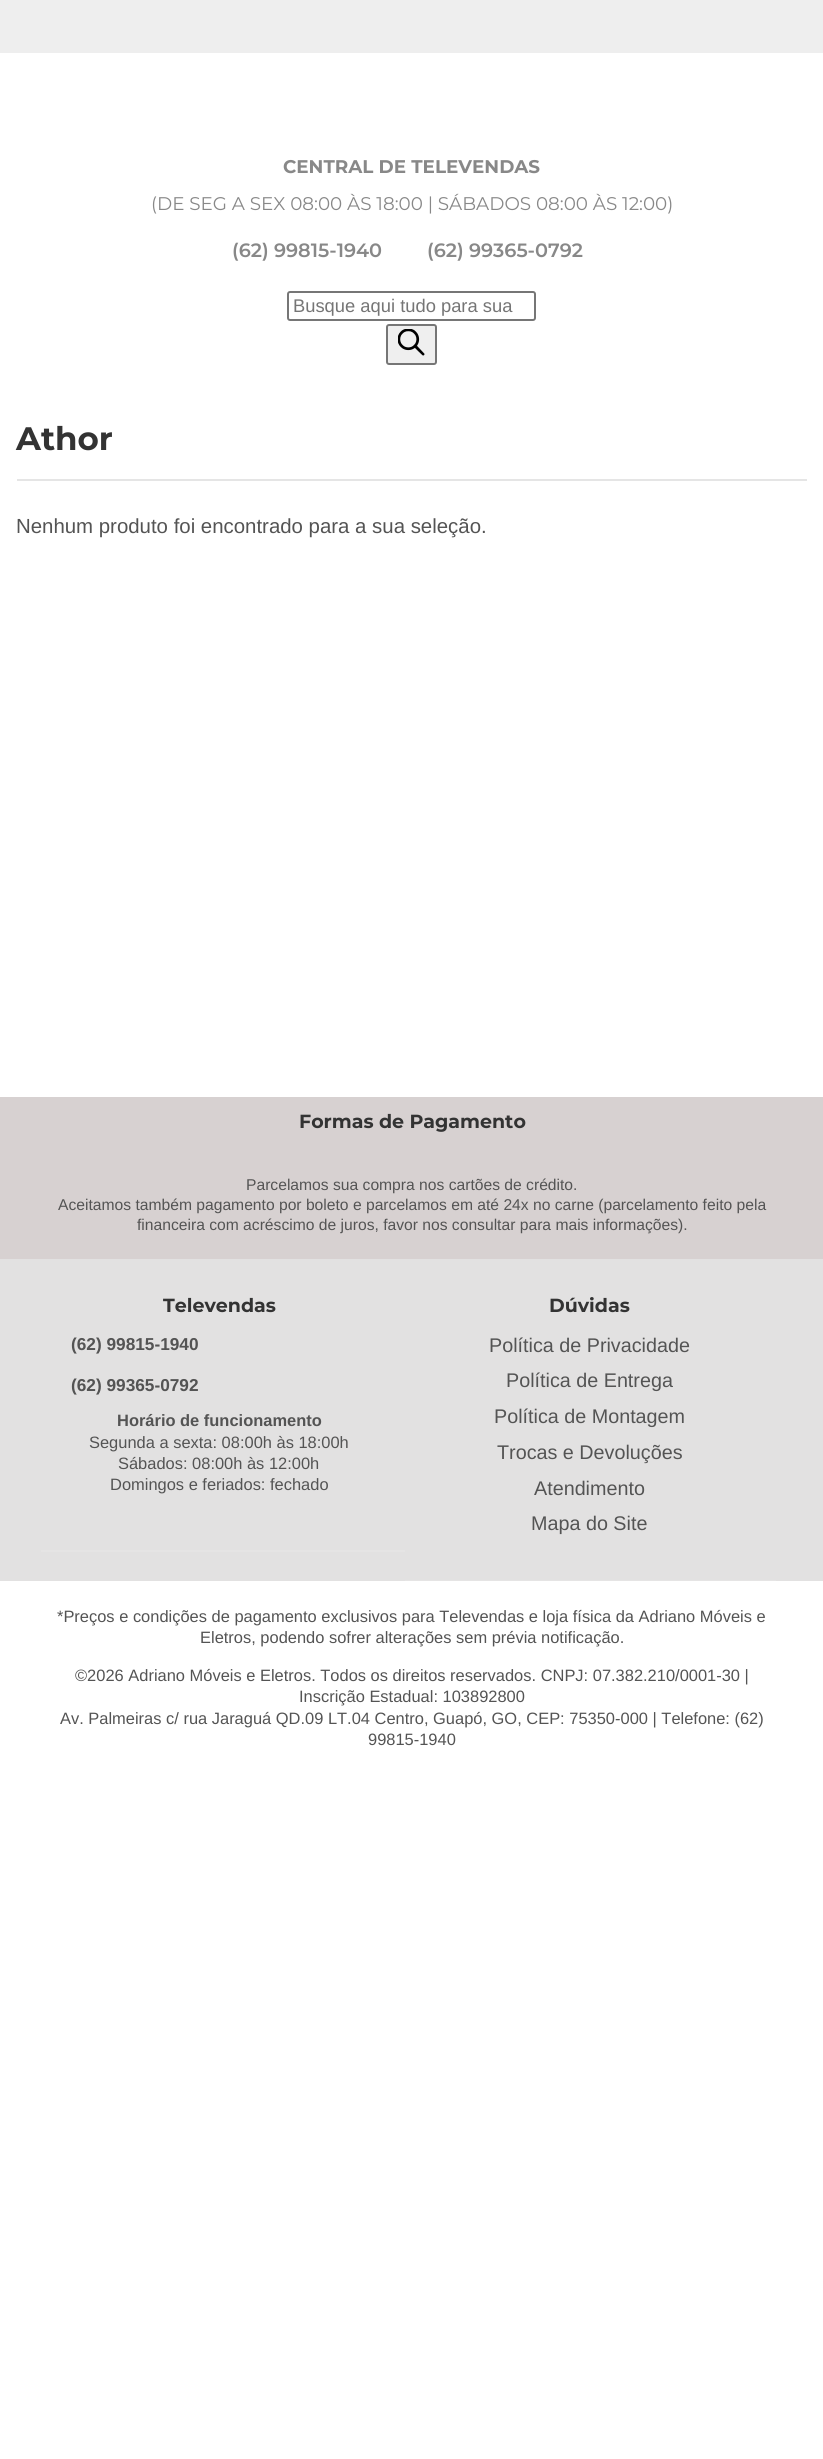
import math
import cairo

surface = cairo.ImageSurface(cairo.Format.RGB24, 823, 2459)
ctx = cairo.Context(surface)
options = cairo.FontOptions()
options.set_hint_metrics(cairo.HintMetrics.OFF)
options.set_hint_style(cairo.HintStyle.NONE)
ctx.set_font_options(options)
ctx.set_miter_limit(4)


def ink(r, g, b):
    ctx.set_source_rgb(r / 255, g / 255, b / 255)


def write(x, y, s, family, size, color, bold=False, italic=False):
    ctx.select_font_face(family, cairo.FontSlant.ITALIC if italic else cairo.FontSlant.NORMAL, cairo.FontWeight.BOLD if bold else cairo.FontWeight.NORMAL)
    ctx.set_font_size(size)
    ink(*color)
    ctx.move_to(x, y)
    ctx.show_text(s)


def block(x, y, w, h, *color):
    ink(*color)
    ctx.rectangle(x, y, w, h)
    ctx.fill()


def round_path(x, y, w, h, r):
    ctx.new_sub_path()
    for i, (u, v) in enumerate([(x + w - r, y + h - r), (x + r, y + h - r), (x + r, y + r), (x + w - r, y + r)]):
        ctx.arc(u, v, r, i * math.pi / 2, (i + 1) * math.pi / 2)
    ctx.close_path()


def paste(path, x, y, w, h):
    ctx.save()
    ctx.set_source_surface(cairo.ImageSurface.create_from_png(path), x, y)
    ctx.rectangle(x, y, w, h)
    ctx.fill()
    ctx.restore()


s1 = dict(family="Montserrat", size=18.35, color=(136, 136, 136), bold=True)
s2 = dict(family="Montserrat", size=18.35, color=(136, 136, 136))
s3 = dict(family="Montserrat SemiBold", size=19.25, color=(136, 136, 136))
s4 = dict(family="Liberation Sans", size=18.35, color=(117, 117, 117))
s5 = dict(family="Montserrat", size=32.5, color=(51, 51, 51), bold=True)
s6 = dict(family="Liberation Sans", size=20.4, color=(84, 84, 84))
s7 = dict(family="Montserrat", size=19, color=(51, 51, 51), bold=True)
s8 = dict(family="Liberation Sans", size=15.65, color=(84, 84, 84))
s9 = dict(family="Liberation Sans", size=17.25, color=(84, 84, 84), bold=True)
s10 = dict(family="Liberation Sans", size=16.45, color=(84, 84, 84), bold=True)
s11 = dict(family="Liberation Sans", size=16.45, color=(84, 84, 84))
s12 = dict(family="Liberation Sans", size=19.75, color=(84, 84, 84))

ink(255, 255, 255)
ctx.paint()
block(0, 0, 823, 53, 238, 238, 238)
write(283, 173, "CENTRAL DE TELEVENDAS", **s1)
write(151, 210, "(DE SEG A SEX 08:00 ÀS 18:00 | SÁBADOS 08:00 ÀS 12:00)", **s2)
write(232, 257, "(62) 99815-1940", **s3)
write(427, 257, "(62) 99365-0792", **s3)
round_path(288, 292, 247, 28, 2)
ink(118, 118, 118)
ctx.stroke()
write(293, 312, "Busque aqui tudo para sua", **s4)
ink(239, 239, 239)
round_path(387, 325, 49, 39, 2)
ctx.fill_preserve()
ink(118, 118, 118)
ctx.stroke()
paste("pic1.png", 398, 329, 27, 27)
block(17, 479, 790, 2, 229, 229, 229)
write(16, 450, "Athor", **s5)
write(16, 533, "Nenhum produto foi encontrado para a sua seleção.", **s6)
block(0, 1259, 823, 322, 226, 225, 225)
block(405, 1580, 371, 1, 229, 228, 228)
block(0, 1097, 823, 162, 215, 209, 209)
write(299, 1128, "Formas de Pagamento", **s7)
write(246, 1190, "Parcelamos sua compra nos cartões de crédito.", **s8)
write(58, 1210, "Aceitamos também pagamento por boleto e parcelamos em até 24x no carne (parcelamento feito pela", **s8)
write(137, 1230, "financeira com acréscimo de juros, favor nos consultar para mais informações).", **s8)
block(41, 1550, 364, 2, 229, 228, 228)
write(163, 1312, "Televendas", **s7)
write(71, 1350, "(62) 99815-1940", **s9)
write(71, 1391, "(62) 99365-0792", **s9)
write(117, 1426, "Horário de funcionamento", **s10)
write(89, 1448, "Segunda a sexta: 08:00h às 18:00h", **s11)
write(118, 1469, "Sábados: 08:00h às 12:00h", **s11)
write(110, 1490, "Domingos e feriados: fechado", **s11)
write(549, 1312, "Dúvidas", **s7)
write(489, 1352, "Política de Privacidade", **s12)
write(506, 1387, "Política de Entrega", **s12)
write(494, 1423, "Política de Montagem", **s12)
write(497, 1459, "Trocas e Devoluções", **s12)
write(534, 1495, "Atendimento", **s12)
write(531, 1530, "Mapa do Site", **s12)
write(57, 1622, "*Preços e condições de pagamento exclusivos para Televendas e loja física da Adriano Móveis e", **s11)
write(200, 1643, "Eletros, podendo sofrer alterações sem prévia notificação.", **s11)
write(75, 1681, "©2026 Adriano Móveis e Eletros. Todos os direitos reservados. CNPJ: 07.382.210/0001-30 |", **s11)
write(299, 1702, "Inscrição Estadual: 103892800", **s11)
write(60, 1724, "Av. Palmeiras c/ rua Jaraguá QD.09 LT.04 Centro, Guapó, GO, CEP: 75350-000 | Telefone: (62)", **s11)
write(368, 1745, "99815-1940", **s11)
surface.write_to_png("screenshot.png")
